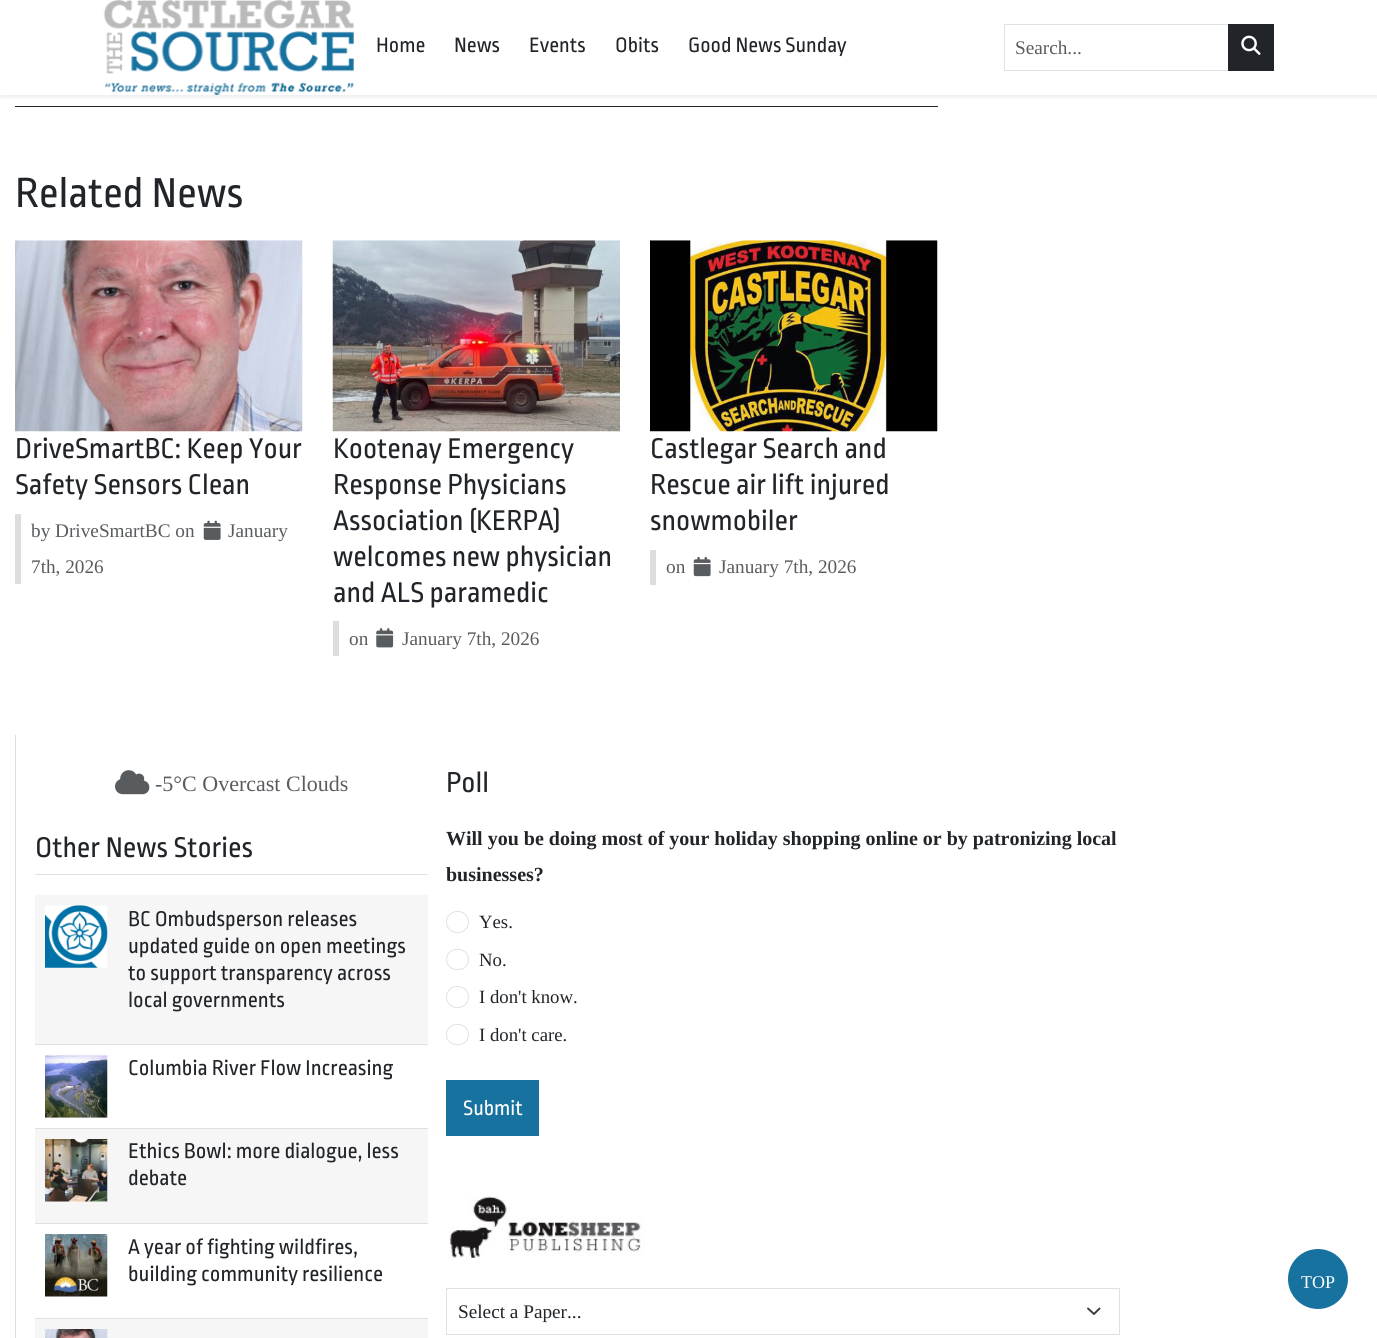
import math
import cairo

surface = cairo.ImageSurface(cairo.Format.RGB24, 1377, 1338)
ctx = cairo.Context(surface)
options = cairo.FontOptions()
options.set_hint_metrics(cairo.HintMetrics.OFF)
options.set_hint_style(cairo.HintStyle.NONE)
ctx.set_font_options(options)
ctx.set_miter_limit(4)


def ink(r, g, b):
    ctx.set_source_rgb(r / 255, g / 255, b / 255)


def write(x, y, s, family, size, color, bold=False, italic=False):
    ctx.select_font_face(family, cairo.FontSlant.ITALIC if italic else cairo.FontSlant.NORMAL, cairo.FontWeight.BOLD if bold else cairo.FontWeight.NORMAL)
    ctx.set_font_size(size)
    ink(*color)
    ctx.move_to(x, y)
    ctx.show_text(s)


def block(x, y, w, h, *color):
    ink(*color)
    ctx.rectangle(x, y, w, h)
    ctx.fill()


def round_path(x, y, w, h, r):
    ctx.new_sub_path()
    for i, (u, v) in enumerate([(x + w - r, y + h - r), (x + r, y + h - r), (x + r, y + r), (x + w - r, y + r)]):
        ctx.arc(u, v, r, i * math.pi / 2, (i + 1) * math.pi / 2)
    ctx.close_path()


def blur_box(x, y, w, h, r, blur, alpha):
    ctx.push_group_with_content(cairo.Content.ALPHA)
    ctx.set_operator(cairo.Operator.SOURCE)
    for i in range(15, -16, -2):
        e = blur * i / 6
        if min(w, h) + 2 * e > 0:
            ctx.set_source_rgba(0, 0, 0, alpha * math.erfc((i - 1) / 8.5) / 2)
            round_path(x - e, y - e, w + 2 * e, h + 2 * e, max(0, min(r + e + blur * .6, min(w, h) / 2 + e)))
            ctx.fill()
    ctx.mask(ctx.pop_group())


def paste(path, x, y, w, h):
    ctx.save()
    ctx.set_source_surface(cairo.ImageSurface.create_from_png(path), x, y)
    ctx.rectangle(x, y, w, h)
    ctx.fill()
    ctx.restore()


s1 = dict(family="Ropa Sans", size=22, color=(33, 37, 41))
s2 = dict(family="Liberation Serif", size=19.25, color=(89, 92, 95))
s3 = dict(family="Ropa Sans", size=44, color=(33, 37, 41))
s4 = dict(family="Ropa Sans", size=30, color=(33, 37, 41))
s5 = dict(family="Liberation Serif", size=22, color=(89, 92, 95))
s6 = dict(family="Ropa Sans", size=22.5, color=(33, 37, 41))
s7 = dict(family="Liberation Serif", size=20, color=(33, 37, 41), bold=True)
s8 = dict(family="Liberation Serif", size=18.75, color=(33, 37, 41))
s9 = dict(family="Ropa Sans", size=22, color=(255, 255, 255))
s10 = dict(family="Liberation Serif", size=19.25, color=(33, 37, 41))
s11 = dict(family="Liberation Serif", size=18, color=(255, 255, 255))

ink(255, 255, 255)
ctx.paint()
block(15, 106, 923, 1, 33, 37, 41)
ctx.save()
ctx.rectangle(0, 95, 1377, 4)
ctx.clip()
ink(0, 0, 0)
blur_box(0, 3, 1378, 95, 0, 2.5, 0.07)
ctx.restore()
paste("pic1.png", 103, 0, 251, 95)
write(376, 52, "Home", **s1)
write(454, 52, "News", **s1)
write(529, 52, "Events", **s1)
write(615, 52, "Obits", **s1)
write(688, 52, "Good News Sunday", **s1)
ctx.rectangle(1004.5, 24.5, 224, 46)
ink(222, 226, 230)
ctx.set_line_width(1)
ctx.stroke()
write(1015, 54, "Search...", **s2)
block(1228, 24, 46, 47, 33, 37, 41)
paste("pic2.png", 1241, 35, 20, 20)
write(15, 207, "Related News", **s3)
paste("pic3.png", 15, 240, 288, 192)
write(15, 458, "DriveSmartBC: Keep Your", **s4)
write(15, 494, "Safety Sensors Clean", **s4)
block(15, 514, 6, 70, 221, 221, 221)
write(31, 537, "by DriveSmartBC on", **s2)
paste("pic4.png", 203, 520, 18, 20)
write(228, 537, "January", **s2)
write(31, 573, "7th, 2026", **s2)
paste("pic5.png", 332, 240, 288, 192)
write(333, 458, "Kootenay Emergency", **s4)
write(333, 494, "Response Physicians", **s4)
write(333, 530, "Association (KERPA)", **s4)
write(333, 566, "welcomes new physician", **s4)
write(333, 602, "and ALS paramedic", **s4)
block(333, 621, 6, 35, 221, 221, 221)
write(349, 645, "on", **s2)
paste("pic6.png", 376, 628, 18, 20)
write(402, 645, "January 7th, 2026", **s2)
paste("pic7.png", 650, 240, 288, 192)
write(650, 458, "Castlegar Search and", **s4)
write(650, 494, "Rescue air lift injured", **s4)
write(650, 530, "snowmobiler", **s4)
block(650, 550, 6, 35, 221, 221, 221)
write(666, 573, "on", **s2)
paste("pic8.png", 693, 556, 18, 21)
write(719, 573, "January 7th, 2026", **s2)
block(15, 735, 1, 603, 221, 221, 221)
paste("pic9.png", 115, 770, 35, 25)
write(155, 791, "-5°C Overcast Clouds", **s5)
block(35, 874, 393, 1, 222, 226, 230)
write(35, 857, "Other News Stories", **s4)
block(35, 895, 393, 149, 246, 246, 246)
block(35, 1044, 393, 1, 222, 226, 230)
paste("pic10.png", 45, 905, 63, 63)
write(128, 926, "BC Ombudsperson releases", **s6)
write(128, 953, "updated guide on open meetings", **s6)
write(128, 980, "to support transparency across", **s6)
write(128, 1007, "local governments", **s6)
block(35, 1128, 393, 1, 222, 226, 230)
paste("pic11.png", 45, 1055, 63, 63)
write(128, 1075, "Columbia River Flow Increasing", **s6)
block(35, 1129, 393, 94, 246, 246, 246)
block(35, 1223, 393, 1, 222, 226, 230)
paste("pic12.png", 45, 1139, 63, 63)
write(128, 1158, "Ethics Bowl: more dialogue, less", **s6)
write(128, 1185, "debate", **s6)
block(35, 1318, 393, 1, 222, 226, 230)
paste("pic13.png", 45, 1234, 63, 63)
write(128, 1254, "A year of fighting wildfires,", **s6)
write(128, 1281, "building community resilience", **s6)
block(35, 1319, 393, 19, 246, 246, 246)
paste("pic14.png", 45, 1329, 63, 9)
write(446, 792, "Poll", **s4)
write(446, 845, "Will you be doing most of your holiday shopping online or by patronizing local", **s7)
write(446, 881, "businesses?", **s7)
round_path(446.5, 911.5, 22, 21, 10.5)
ink(222, 226, 230)
ctx.stroke()
write(479, 928, "Yes.", **s8)
round_path(446.5, 949.5, 22, 20, 10)
ink(222, 226, 230)
ctx.stroke()
write(479, 966, "No.", **s8)
round_path(446.5, 986.5, 22, 21, 10.5)
ink(222, 226, 230)
ctx.stroke()
write(479, 1003, "I don't know.", **s8)
round_path(446.5, 1024.5, 22, 20, 10)
ink(222, 226, 230)
ctx.stroke()
write(479, 1041, "I don't care.", **s8)
block(446, 1080, 93, 56, 24, 114, 160)
write(463, 1115, "Submit", **s9)
paste("pic15.png", 449, 1196, 196, 62)
ctx.new_path()
ctx.move_to(1088, 1308.5)
ctx.line_to(1094, 1314)
ctx.line_to(1099.5, 1308.5)
ink(52, 58, 64)
ctx.set_line_width(1.9)
ctx.set_line_cap(cairo.LineCap.ROUND)
ctx.set_line_join(cairo.LineJoin.ROUND)
ctx.stroke()
ctx.rectangle(446.5, 1288.5, 673, 46)
ink(222, 226, 230)
ctx.set_line_width(1)
ctx.set_line_cap(cairo.LineCap.BUTT)
ctx.set_line_join(cairo.LineJoin.MITER)
ctx.stroke()
write(458, 1318, "Select a Paper...", **s10)
ink(24, 114, 160)
ctx.new_path()
ctx.arc(1318, 1279, 30, 0, 2 * math.pi)
ctx.fill()
write(1301, 1288, "TOP", **s11)
surface.write_to_png("screenshot.png")
